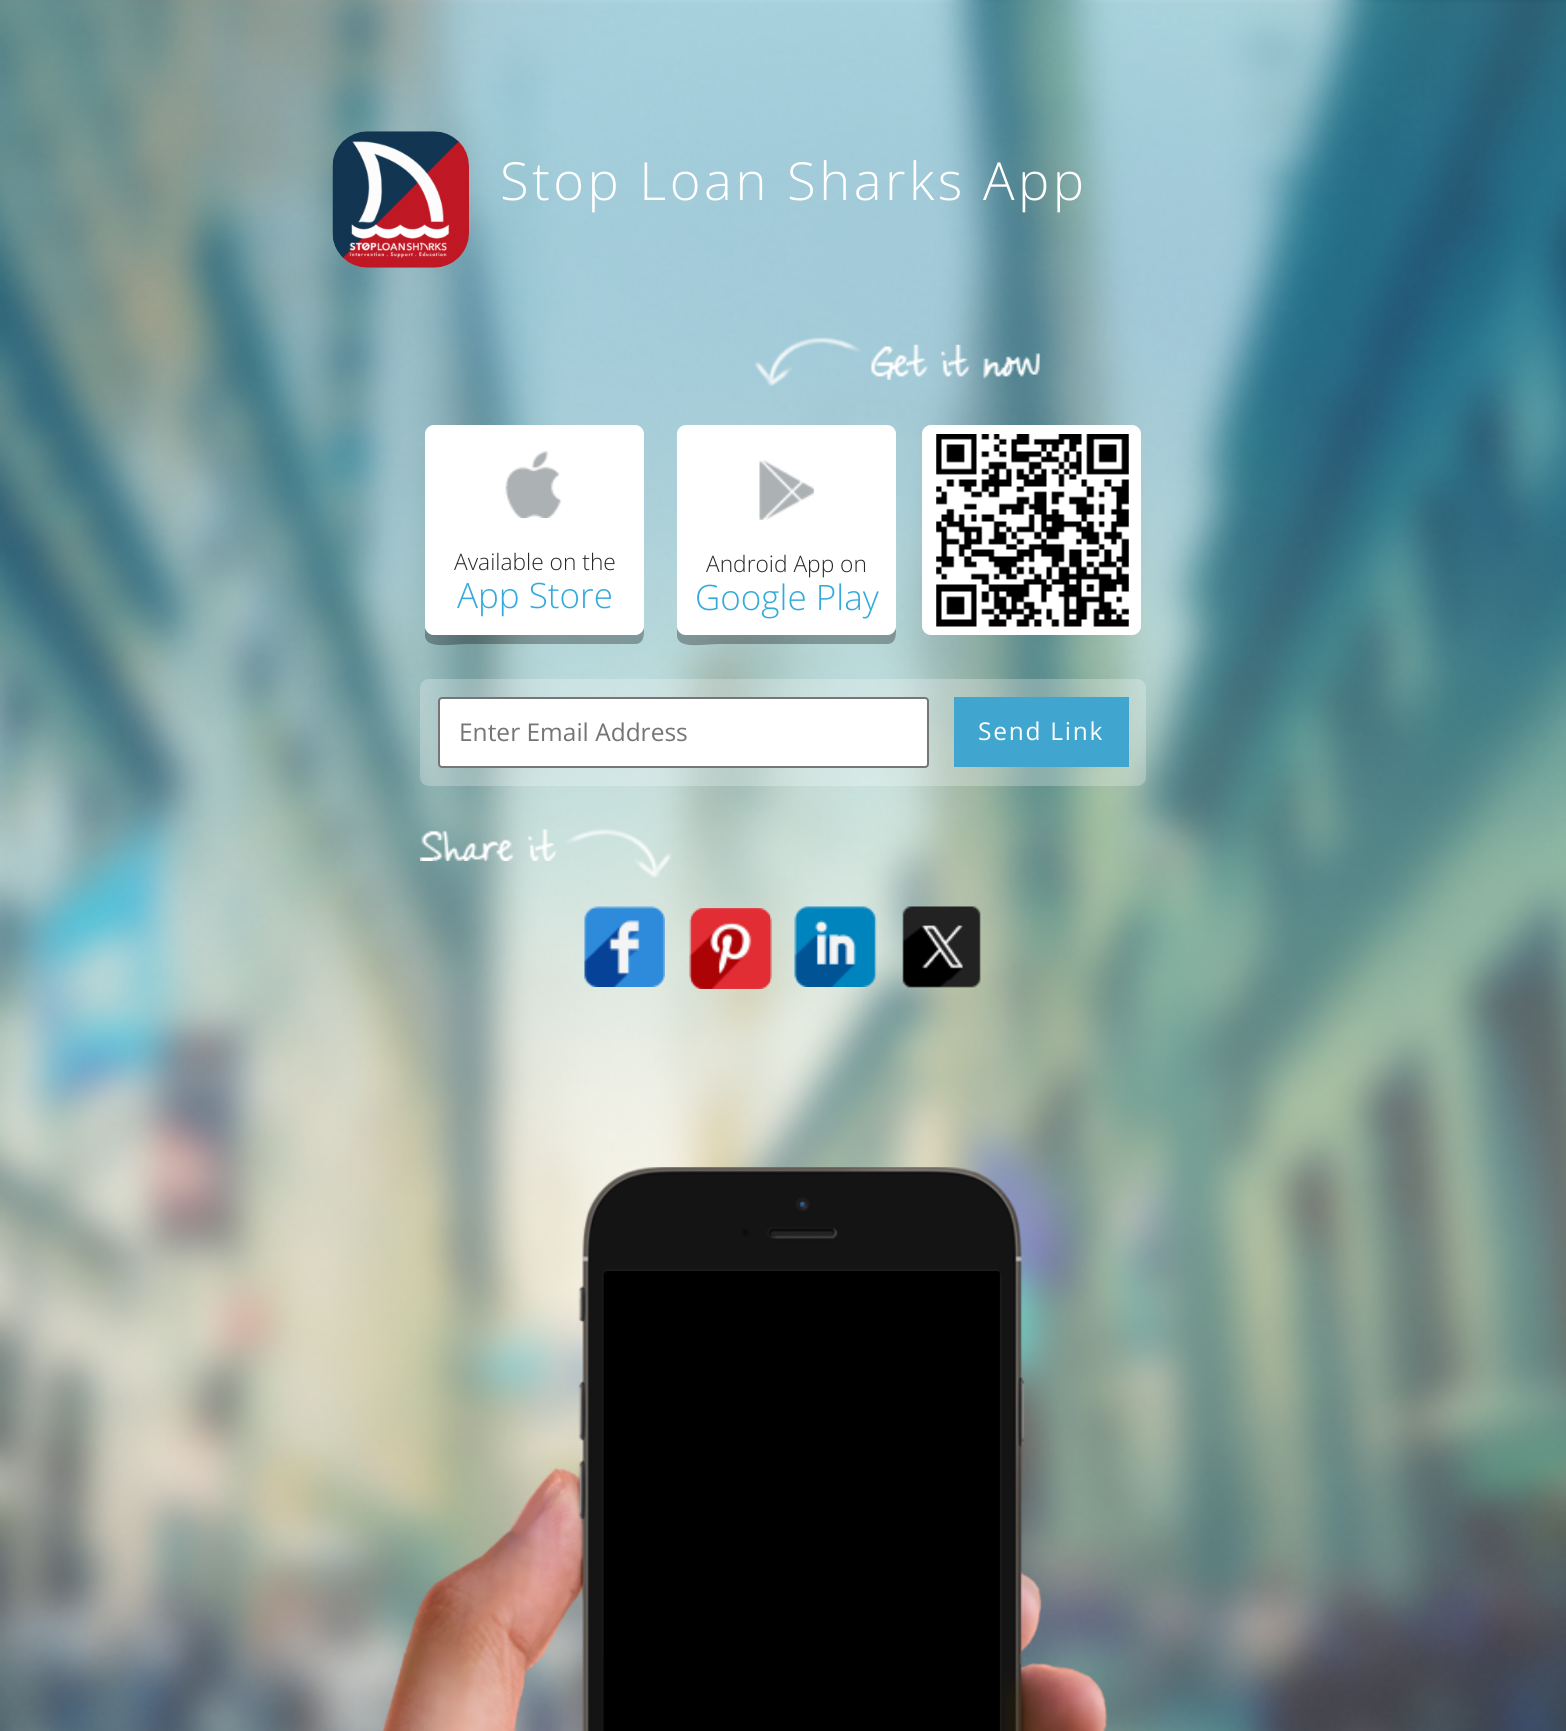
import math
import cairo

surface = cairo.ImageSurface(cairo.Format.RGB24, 1566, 1731)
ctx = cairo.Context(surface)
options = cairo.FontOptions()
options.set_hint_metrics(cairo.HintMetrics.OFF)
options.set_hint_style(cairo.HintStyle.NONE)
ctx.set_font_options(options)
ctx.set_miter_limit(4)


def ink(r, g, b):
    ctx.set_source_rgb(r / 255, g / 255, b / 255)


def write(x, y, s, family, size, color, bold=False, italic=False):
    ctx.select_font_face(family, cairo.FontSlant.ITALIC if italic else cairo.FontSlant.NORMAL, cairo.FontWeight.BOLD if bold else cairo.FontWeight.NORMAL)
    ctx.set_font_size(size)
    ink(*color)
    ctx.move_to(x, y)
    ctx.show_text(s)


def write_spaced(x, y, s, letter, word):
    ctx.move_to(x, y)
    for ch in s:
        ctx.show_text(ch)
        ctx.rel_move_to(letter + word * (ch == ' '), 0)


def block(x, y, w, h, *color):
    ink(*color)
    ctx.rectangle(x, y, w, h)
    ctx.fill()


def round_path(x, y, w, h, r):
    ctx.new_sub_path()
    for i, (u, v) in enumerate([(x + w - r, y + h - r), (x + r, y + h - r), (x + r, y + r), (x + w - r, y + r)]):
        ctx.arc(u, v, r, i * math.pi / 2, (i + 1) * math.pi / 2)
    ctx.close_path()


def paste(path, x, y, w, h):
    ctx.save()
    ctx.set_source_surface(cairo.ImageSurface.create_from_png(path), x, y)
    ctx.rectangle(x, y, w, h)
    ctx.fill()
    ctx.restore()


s1 = dict(family="Open Sans Light", size=22.75, color=(41, 40, 41))
s2 = dict(family="Open Sans Light", size=35, color=(51, 170, 218))
s3 = dict(family="Open Sans", size=24.5, color=(117, 117, 117))

ink(255, 255, 255)
ctx.paint()
paste("pic1.png", 0, 0, 1566, 1731)
paste("pic2.png", 332, 131, 137, 137)
ctx.select_font_face("Open Sans Light")
ctx.set_font_size(52.5)
ink(255, 255, 255)
write_spaced(500, 200, "Stop Loan Sharks App", 3.5, 0)
paste("pic3.png", 754, 337, 107, 50)
paste("pic4.png", 870, 344, 171, 36)
ctx.set_source_rgba(0, 0, 0, 0.3)
ctx.new_path()
ctx.move_to(425, 441)
ctx.line_to(425, 635)
ctx.curve_to(425, 650, 451, 644, 468, 644)
ctx.line_to(635, 644)
ctx.curve_to(645, 644, 644, 633, 644, 626)
ctx.curve_to(644, 631, 640, 635, 635, 635)
ctx.line_to(434, 635)
ctx.curve_to(429, 635, 425, 631, 425, 626)
ctx.close_path()
ctx.fill()
ink(255, 255, 255)
round_path(425, 425, 219, 210, 9)
ctx.fill()
paste("pic5.png", 505, 451, 57, 67)
write(454, 570, "Available on the", **s1)
write(457, 608, "App Store", **s2)
ctx.set_source_rgba(0, 0, 0, 0.3)
ctx.new_path()
ctx.move_to(677, 441)
ctx.line_to(677, 635)
ctx.curve_to(677, 650, 703, 644, 720, 644)
ctx.line_to(887, 644)
ctx.curve_to(897, 644, 896, 633, 896, 626)
ctx.curve_to(896, 631, 892, 635, 887, 635)
ctx.line_to(686, 635)
ctx.curve_to(681, 635, 677, 631, 677, 626)
ctx.close_path()
ctx.fill()
ink(255, 255, 255)
round_path(677, 425, 219, 210, 9)
ctx.fill()
paste("pic6.png", 759, 460, 55, 60)
write(706, 572, "Android App on", **s1)
write(695, 610, "Google Play", **s2)
ink(255, 255, 255)
round_path(922, 425, 219, 210, 9)
ctx.fill()
paste("pic7.png", 936, 434, 193, 193)
ctx.set_source_rgba(1, 1, 1, 0.25)
round_path(420, 679, 726, 107, 9)
ctx.fill()
ink(255, 255, 255)
round_path(439, 698, 489, 69, 3)
ctx.fill_preserve()
ink(118, 118, 118)
ctx.stroke()
write(459, 741, "Enter Email Address", **s3)
block(954, 697, 175, 70, 64, 166, 207)
ink(255, 255, 255)
write_spaced(978, 740, "Send Link", 1.75, 0)
paste("pic8.png", 420, 829, 137, 32)
paste("pic9.png", 566, 829, 106, 49)
paste("pic10.png", 584, 906, 81, 81)
paste("pic11.png", 689, 908, 81, 81)
paste("pic12.png", 689, 908, 83, 81)
paste("pic13.png", 794, 906, 83, 81)
paste("pic14.png", 902, 906, 79, 82)
block(603, 1270, 398, 461, 0, 0, 0)
paste("pic15.png", 382, 1167, 726, 564)
surface.write_to_png("screenshot.png")
